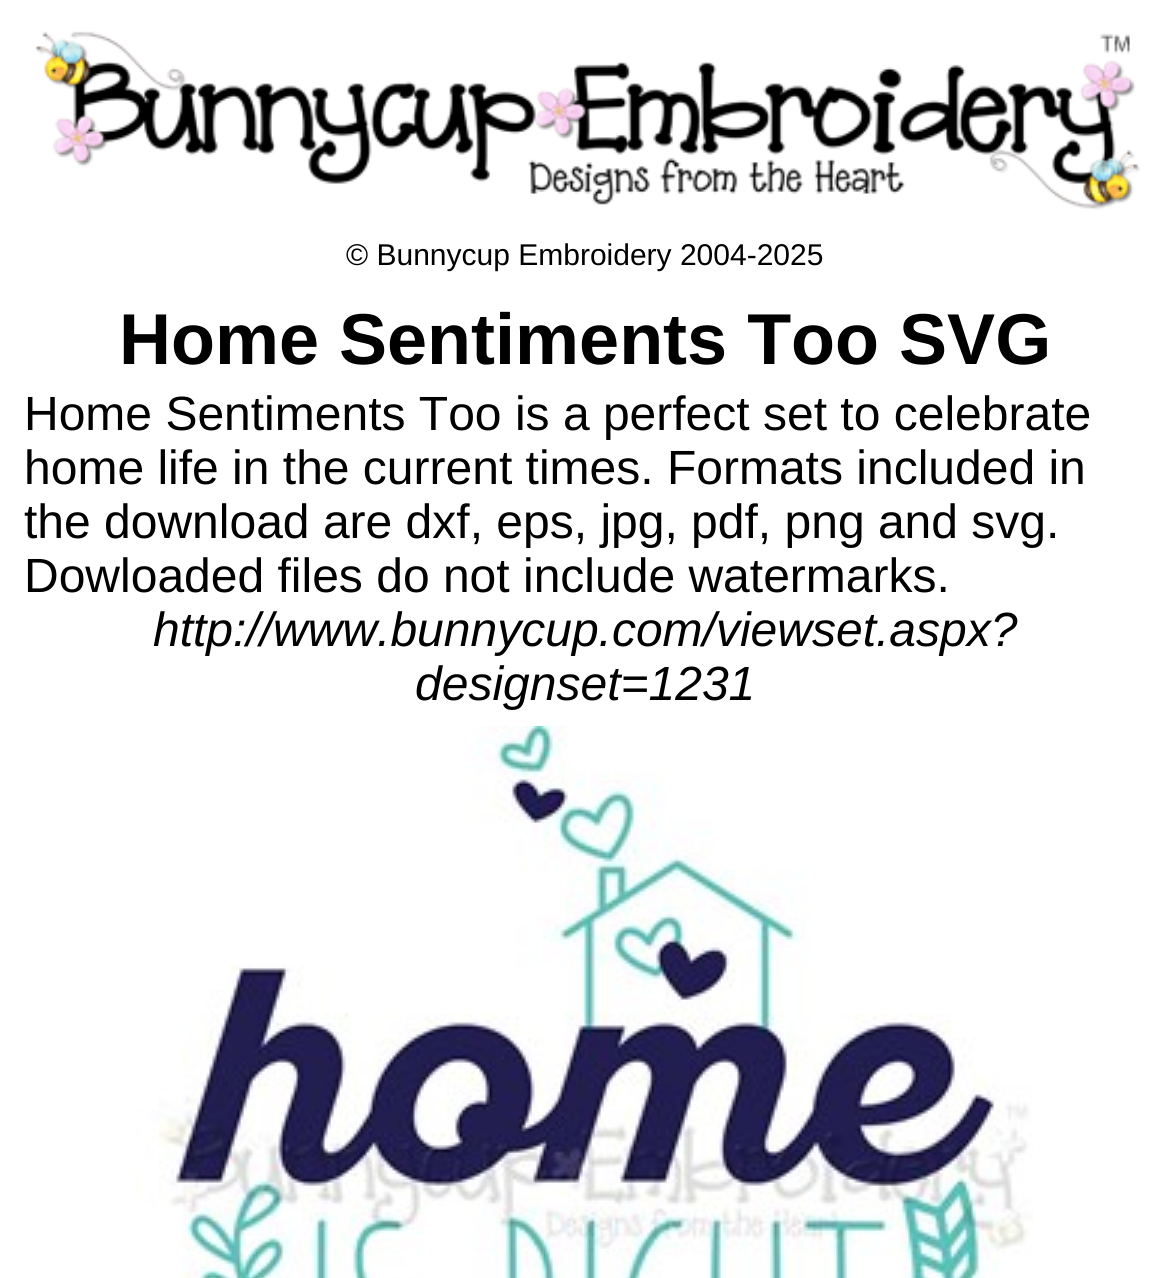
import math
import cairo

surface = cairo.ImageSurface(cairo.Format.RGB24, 1170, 1278)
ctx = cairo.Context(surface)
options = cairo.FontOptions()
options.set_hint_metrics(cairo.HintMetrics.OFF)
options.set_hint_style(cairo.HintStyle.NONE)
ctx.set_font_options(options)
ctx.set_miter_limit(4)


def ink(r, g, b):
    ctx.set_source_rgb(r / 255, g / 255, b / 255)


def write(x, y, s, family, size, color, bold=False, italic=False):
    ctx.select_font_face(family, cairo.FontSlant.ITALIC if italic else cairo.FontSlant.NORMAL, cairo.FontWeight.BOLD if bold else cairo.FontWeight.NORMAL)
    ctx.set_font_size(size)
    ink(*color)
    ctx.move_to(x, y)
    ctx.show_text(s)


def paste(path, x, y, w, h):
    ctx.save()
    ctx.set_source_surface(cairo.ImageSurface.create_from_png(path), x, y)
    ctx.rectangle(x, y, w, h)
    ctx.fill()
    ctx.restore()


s1 = dict(family="Liberation Sans", size=30, color=(0, 0, 0))
s2 = dict(family="Liberation Sans", size=72, color=(0, 0, 0), bold=True)
s3 = dict(family="Liberation Sans", size=48, color=(0, 0, 0))
s4 = dict(family="Liberation Sans", size=48, color=(0, 0, 0), italic=True)

ink(255, 255, 255)
ctx.paint()
paste("pic1.png", 36, 31, 1104, 179)
write(346, 265, "© Bunnycup Embroidery 2004-2025", **s1)
write(119, 364, "Home Sentiments Too SVG", **s2)
write(24, 430, "Home Sentiments Too is a perfect set to celebrate", **s3)
write(24, 484, "home life in the current times. Formats included in", **s3)
write(24, 538, "the download are dxf, eps, jpg, pdf, png and svg.", **s3)
write(24, 592, "Dowloaded files do not include watermarks.", **s3)
write(153, 646, "http://www.bunnycup.com/viewset.aspx?", **s4)
write(415, 700, "designset=1231", **s4)
paste("pic2.png", 135, 726, 898, 552)
surface.write_to_png("screenshot.png")
